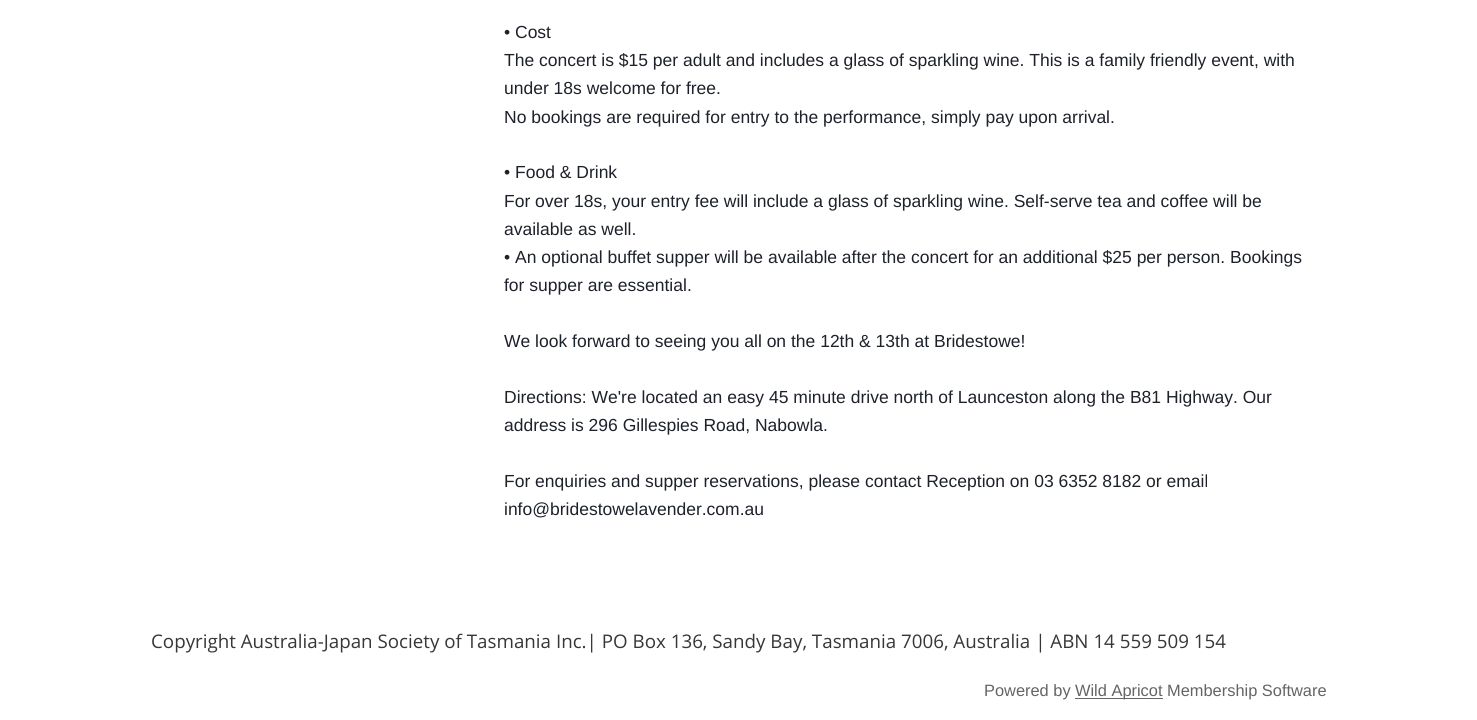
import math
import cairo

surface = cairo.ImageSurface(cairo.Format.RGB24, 1477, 720)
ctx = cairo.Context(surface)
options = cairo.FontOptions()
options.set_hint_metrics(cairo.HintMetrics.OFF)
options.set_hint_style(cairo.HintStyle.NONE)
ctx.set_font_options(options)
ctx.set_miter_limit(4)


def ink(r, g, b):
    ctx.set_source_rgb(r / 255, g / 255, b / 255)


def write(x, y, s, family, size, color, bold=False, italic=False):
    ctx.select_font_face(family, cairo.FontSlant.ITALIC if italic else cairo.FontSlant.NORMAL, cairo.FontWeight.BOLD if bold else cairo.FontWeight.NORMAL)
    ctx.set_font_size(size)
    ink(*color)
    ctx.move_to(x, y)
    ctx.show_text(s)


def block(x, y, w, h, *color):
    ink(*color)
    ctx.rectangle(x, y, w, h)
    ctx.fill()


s1 = dict(family="Liberation Sans", size=17.5, color=(29, 33, 41))
s2 = dict(family="Open Sans", size=18.75, color=(55, 55, 55))
s3 = dict(family="Liberation Sans", size=16.4, color=(100, 100, 100))

ink(255, 255, 255)
ctx.paint()
write(504, 38, "• Cost", **s1)
write(504, 66, "The concert is $15 per adult and includes a glass of sparkling wine. This is a family friendly event, with", **s1)
write(504, 94, "under 18s welcome for free.", **s1)
write(504, 123, "No bookings are required for entry to the performance, simply pay upon arrival.", **s1)
write(504, 178, "• Food & Drink", **s1)
write(504, 207, "For over 18s, your entry fee will include a glass of sparkling wine. Self-serve tea and coffee will be", **s1)
write(504, 235, "available as well.", **s1)
write(504, 263, "• An optional buffet supper will be available after the concert for an additional $25 per person. Bookings", **s1)
write(504, 291, "for supper are essential.", **s1)
write(504, 347, "We look forward to seeing you all on the 12th & 13th at Bridestowe!", **s1)
write(504, 403, "Directions: We're located an easy 45 minute drive north of Launceston along the B81 Highway. Our", **s1)
write(504, 431, "address is 296 Gillespies Road, Nabowla.", **s1)
write(504, 487, "For enquiries and supper reservations, please contact Reception on 03 6352 8182 or email", **s1)
write(504, 515, "info@bridestowelavender.com.au", **s1)
write(151, 648, "Copyright Australia-Japan Society of Tasmania Inc.| PO Box 136, Sandy Bay, Tasmania 7006, Australia | ABN 14 559 509 154", **s2)
write(984, 696, "Powered by", **s3)
block(1075, 698, 88, 1, 100, 100, 100)
write(1075, 696, "Wild Apricot Membership Software", **s3)
surface.write_to_png("screenshot.png")
